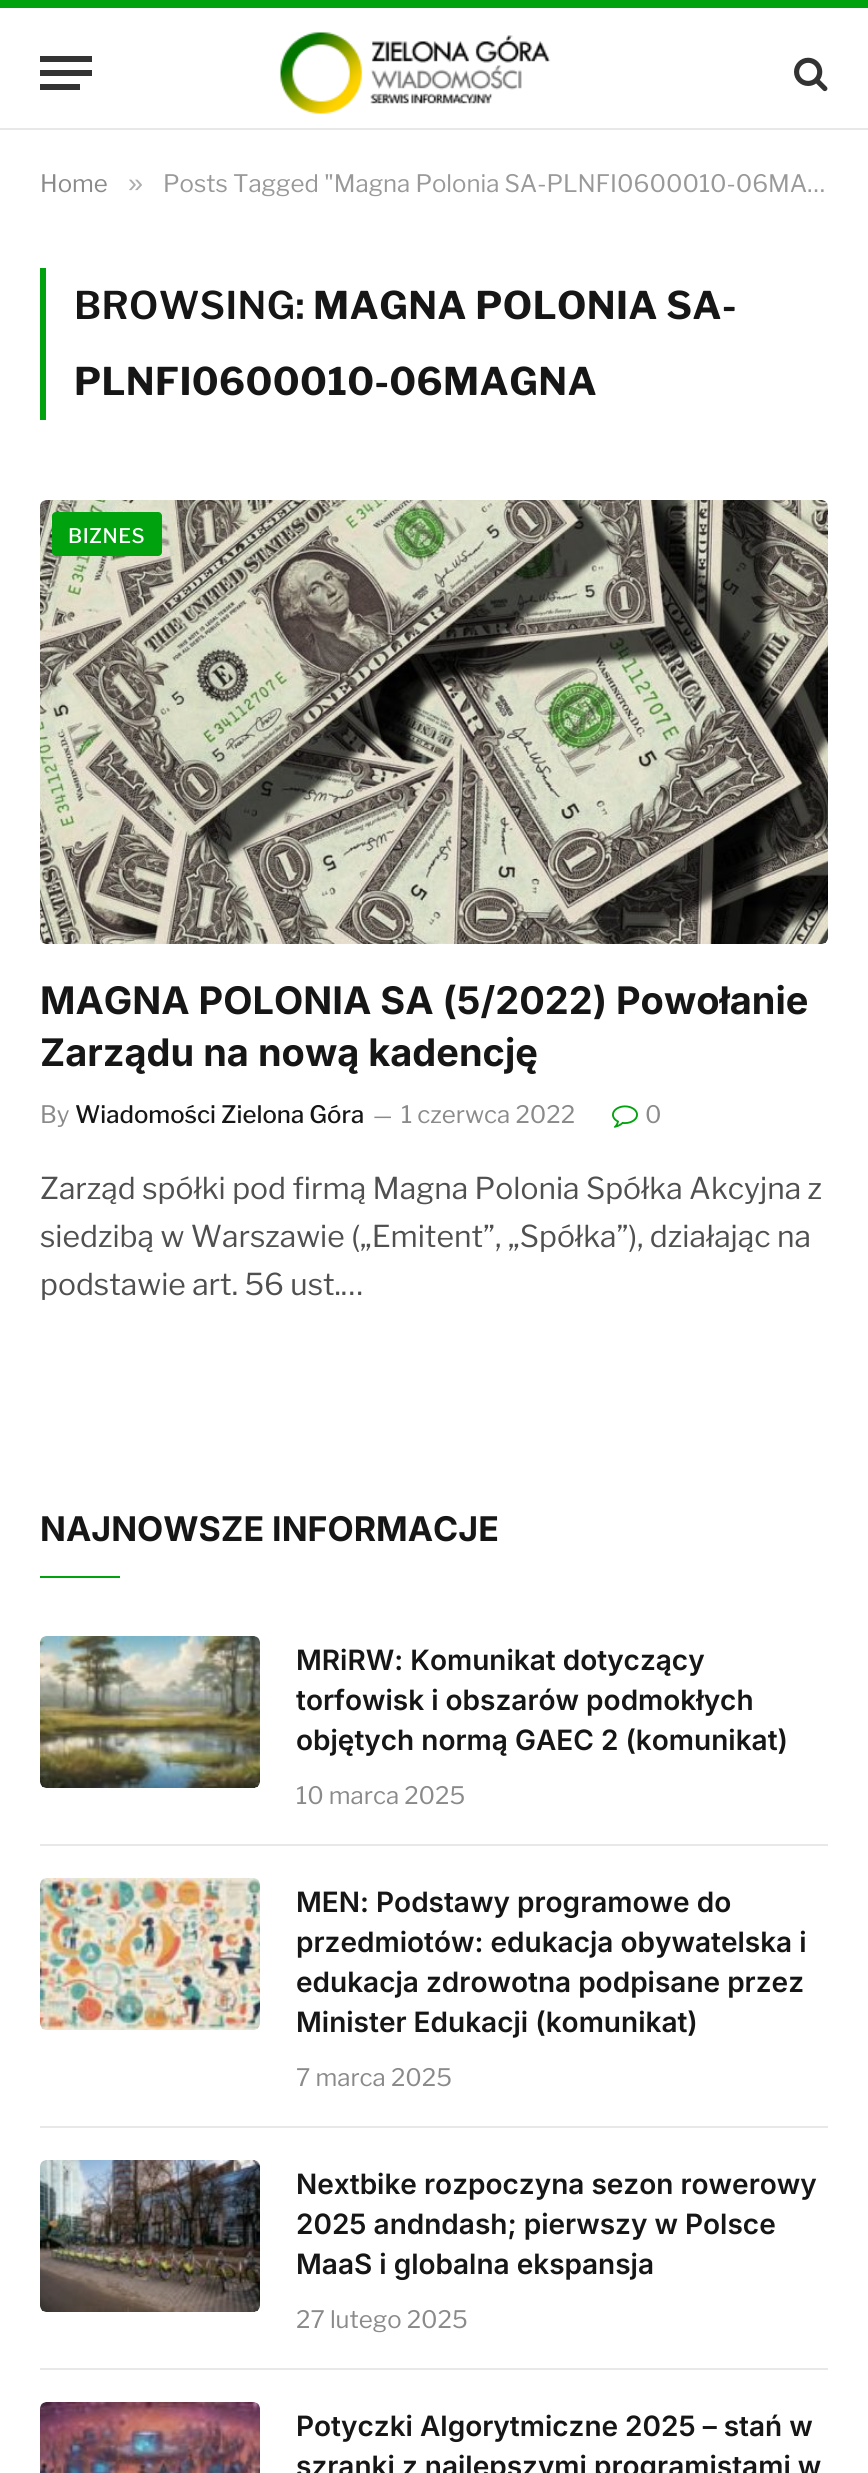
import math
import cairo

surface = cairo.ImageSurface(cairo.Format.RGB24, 868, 2473)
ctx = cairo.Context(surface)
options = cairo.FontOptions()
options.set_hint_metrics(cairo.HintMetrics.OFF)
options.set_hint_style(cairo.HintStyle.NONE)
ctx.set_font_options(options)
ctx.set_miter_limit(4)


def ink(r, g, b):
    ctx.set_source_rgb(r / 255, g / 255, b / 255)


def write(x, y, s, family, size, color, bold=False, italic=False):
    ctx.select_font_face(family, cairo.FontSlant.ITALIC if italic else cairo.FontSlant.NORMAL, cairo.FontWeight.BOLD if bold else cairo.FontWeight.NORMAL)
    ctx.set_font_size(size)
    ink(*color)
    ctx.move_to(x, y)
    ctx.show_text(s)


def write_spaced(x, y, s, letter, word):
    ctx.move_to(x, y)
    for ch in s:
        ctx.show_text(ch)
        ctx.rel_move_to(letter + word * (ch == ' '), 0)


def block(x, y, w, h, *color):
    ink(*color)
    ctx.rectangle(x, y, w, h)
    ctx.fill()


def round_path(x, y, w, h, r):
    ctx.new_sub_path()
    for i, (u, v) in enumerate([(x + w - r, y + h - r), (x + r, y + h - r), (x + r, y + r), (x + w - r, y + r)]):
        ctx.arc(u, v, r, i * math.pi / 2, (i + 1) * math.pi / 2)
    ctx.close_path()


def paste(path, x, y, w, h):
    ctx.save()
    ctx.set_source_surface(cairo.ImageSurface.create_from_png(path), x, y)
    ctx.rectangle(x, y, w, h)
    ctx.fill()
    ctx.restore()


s1 = dict(family="Libre Franklin", size=24, color=(138, 138, 138))
s2 = dict(family="Liberation Sans", size=27, color=(173, 173, 173))
s3 = dict(family="Libre Franklin", size=24, color=(153, 153, 153))
s4 = dict(family="Inter", size=38, color=(22, 22, 22), bold=True)
s5 = dict(family="Libre Franklin Medium", size=24, color=(22, 22, 22))
s6 = dict(family="Libre Franklin", size=22, color=(138, 138, 138))
s7 = dict(family="Libre Franklin", size=30, color=(80, 80, 80))
s8 = dict(family="Inter", size=34, color=(22, 22, 22), bold=True)
s9 = dict(family="Inter SemiBold", size=28, color=(22, 22, 22))

ink(255, 255, 255)
ctx.paint()
block(0, 0, 868, 8, 0, 163, 13)
block(0, 128, 868, 2, 232, 232, 232)
block(40, 84, 40, 6, 51, 51, 51)
block(40, 56, 52, 6, 51, 51, 51)
block(40, 70, 52, 6, 51, 51, 51)
paste("pic1.png", 280, 32, 271, 82)
paste("pic2.png", 794, 57, 34, 35)
write(40, 192, "Home", **s1)
write(128, 192, "»", **s2)
write(163, 192, "Posts Tagged \"Magna Polonia SA-PLNFI0600010-06MA…", **s3)
block(40, 268, 6, 152, 0, 163, 13)
ctx.select_font_face("Libre Franklin SemiBold")
ctx.set_font_size(38)
ink(22, 22, 22)
write_spaced(74, 319, "BROWSING:", 0.4, 0)
ctx.select_font_face("Libre Franklin", cairo.FontSlant.NORMAL, cairo.FontWeight.BOLD)
write_spaced(313, 319, "MAGNA POLONIA SA-", 0.4, 0)
write_spaced(74, 395, "PLNFI0600010-06MAGNA", 0.4, 0)
paste("pic3.png", 40, 500, 788, 444)
ink(0, 163, 13)
round_path(52, 512, 110, 44, 4)
ctx.fill()
ctx.select_font_face("Libre Franklin Medium")
ctx.set_font_size(20)
ink(255, 255, 255)
write_spaced(68, 543, "BIZNES", 0.5, 0)
write(40, 1014, "MAGNA POLONIA SA (5/2022) Powołanie", **s4)
write(40, 1066, "Zarządu na nową kadencję", **s4)
write(40, 1123, "By", **s1)
write(75, 1123, "Wiadomości Zielona Góra", **s5)
write(373, 1123, "—", **s6)
write(401, 1123, "1 czerwca 2022", **s1)
paste("pic4.png", 612, 1105, 26, 23)
write(645, 1123, "0", **s1)
write(40, 1199, "Zarząd spółki pod firmą Magna Polonia Spółka Akcyjna z", **s7)
write(40, 1247, "siedzibą w Warszawie („Emitent”, „Spółka”), działając na", **s7)
write(40, 1295, "podstawie art. 56 ust.…", **s7)
write(40, 1541, "NAJNOWSZE INFORMACJE", **s8)
block(40, 1576, 80, 2, 0, 163, 13)
paste("pic5.png", 40, 1636, 220, 152)
write(296, 1670, "MRiRW: Komunikat dotyczący", **s9)
write(296, 1710, "torfowisk i obszarów podmokłych", **s9)
write(296, 1750, "objętych normą GAEC 2 (komunikat)", **s9)
write(296, 1804, "10 marca 2025", **s1)
block(40, 1844, 788, 2, 232, 232, 232)
paste("pic6.png", 40, 1878, 220, 152)
write(296, 1912, "MEN: Podstawy programowe do", **s9)
write(296, 1952, "przedmiotów: edukacja obywatelska i", **s9)
write(296, 1992, "edukacja zdrowotna podpisane przez", **s9)
write(296, 2032, "Minister Edukacji (komunikat)", **s9)
write(296, 2086, "7 marca 2025", **s1)
block(40, 2126, 788, 2, 232, 232, 232)
paste("pic7.png", 40, 2160, 220, 152)
write(296, 2194, "Nextbike rozpoczyna sezon rowerowy", **s9)
write(296, 2234, "2025 andndash; pierwszy w Polsce", **s9)
write(296, 2274, "MaaS i globalna ekspansja", **s9)
write(296, 2328, "27 lutego 2025", **s1)
block(40, 2368, 788, 2, 232, 232, 232)
paste("pic8.png", 40, 2402, 220, 71)
write(296, 2436, "Potyczki Algorytmiczne 2025 – stań w", **s9)
write(296, 2476, "szranki z najlepszymi programistami w", **s9)
surface.write_to_png("screenshot.png")
